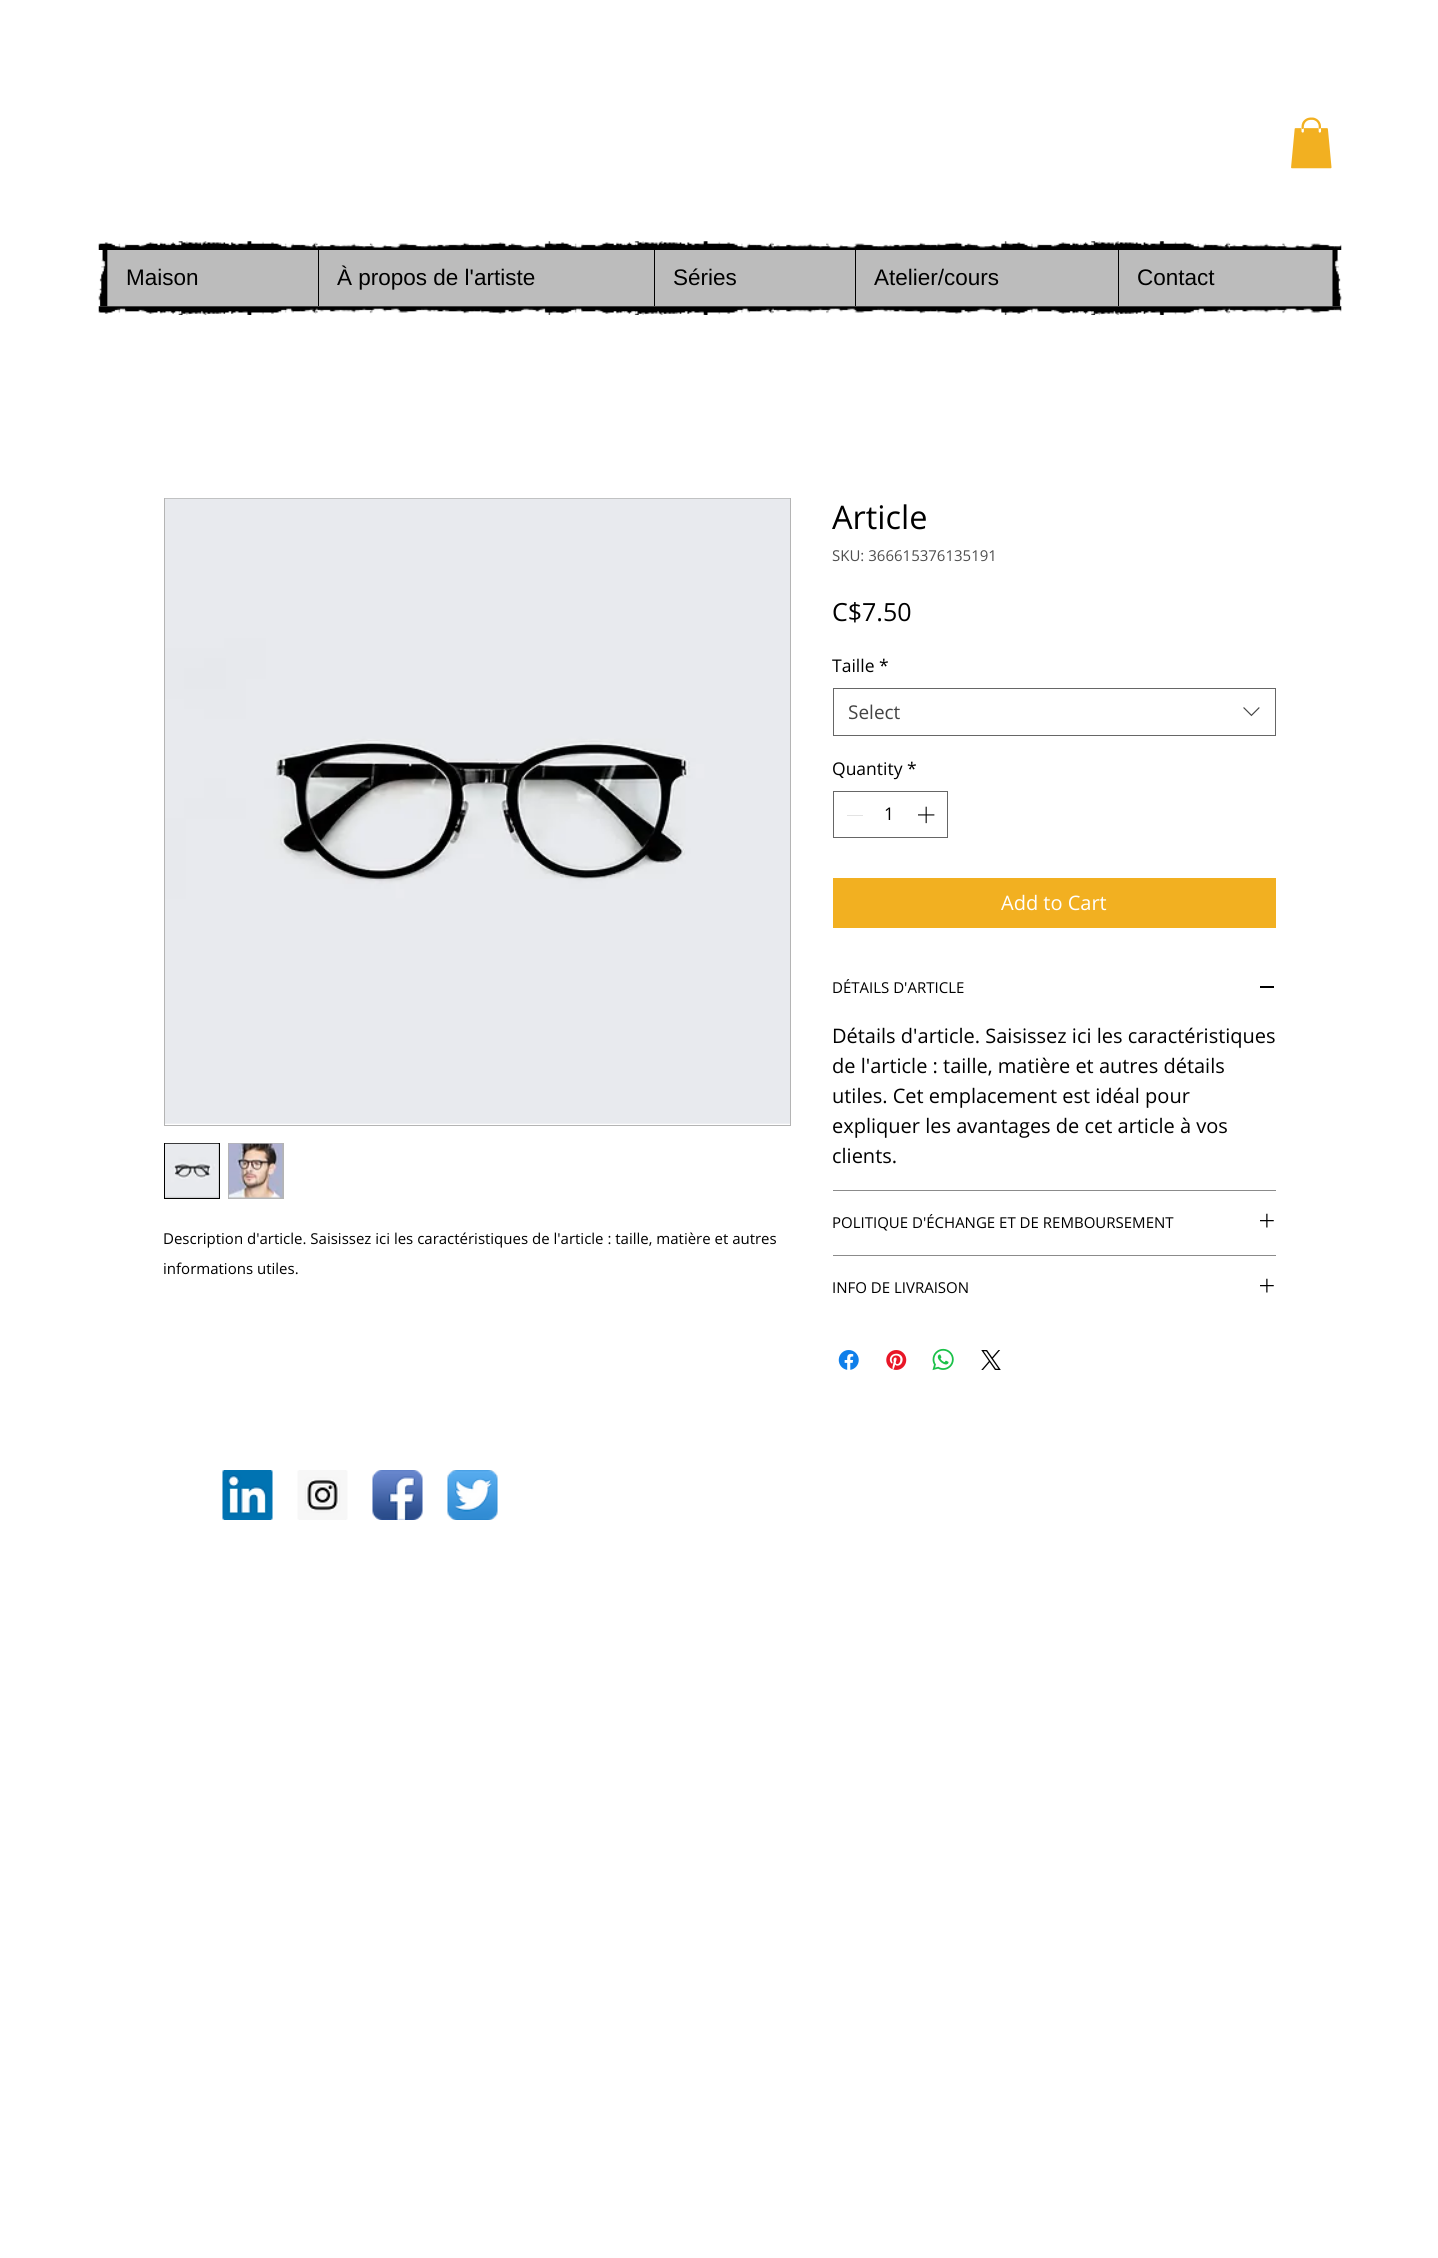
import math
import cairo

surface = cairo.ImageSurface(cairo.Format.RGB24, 1438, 2258)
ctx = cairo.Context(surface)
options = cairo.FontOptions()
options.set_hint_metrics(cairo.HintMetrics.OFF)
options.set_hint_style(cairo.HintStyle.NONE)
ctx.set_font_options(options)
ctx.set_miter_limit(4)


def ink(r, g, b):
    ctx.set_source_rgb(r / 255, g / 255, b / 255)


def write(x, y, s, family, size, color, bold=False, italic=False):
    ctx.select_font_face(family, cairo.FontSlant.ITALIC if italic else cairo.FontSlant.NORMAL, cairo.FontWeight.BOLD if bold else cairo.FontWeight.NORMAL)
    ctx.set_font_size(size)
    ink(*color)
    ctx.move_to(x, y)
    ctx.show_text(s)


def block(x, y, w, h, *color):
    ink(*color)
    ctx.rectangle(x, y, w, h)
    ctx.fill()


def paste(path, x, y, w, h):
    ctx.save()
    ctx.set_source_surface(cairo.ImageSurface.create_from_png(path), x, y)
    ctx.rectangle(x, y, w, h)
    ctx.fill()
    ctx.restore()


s1 = dict(family="Liberation Sans", size=22.5, color=(0, 0, 0))
s2 = dict(family="Open Sans", size=15, color=(0, 0, 0))
s3 = dict(family="Open Sans", size=32.5, color=(0, 0, 0))
s4 = dict(family="Open Sans", size=15, color=(79, 79, 79))
s5 = dict(family="Open Sans", size=25, color=(0, 0, 0))
s6 = dict(family="Open Sans", size=17.5, color=(0, 0, 0))
s7 = dict(family="Open Sans", size=19, color=(68, 68, 68))
s8 = dict(family="Open Sans", size=20, color=(255, 255, 255))
s9 = dict(family="Open Sans", size=20, color=(0, 0, 0))

ink(255, 255, 255)
ctx.paint()
paste("pic1.png", 1291, 117, 41, 52)
paste("pic2.png", 98, 241, 1244, 9)
paste("pic3.png", 98, 250, 10, 57)
block(108, 250, 1225, 56, 188, 188, 188)
write(126, 285, "Maison", **s1)
block(318, 250, 1, 56, 0, 0, 0)
write(337, 285, "À propos de l'artiste", **s1)
block(654, 250, 1, 56, 0, 0, 0)
write(673, 285, "Séries", **s1)
block(855, 250, 1, 56, 0, 0, 0)
write(874, 285, "Atelier/cours", **s1)
block(1118, 250, 1, 56, 0, 0, 0)
write(1137, 285, "Contact", **s1)
paste("pic4.png", 1332, 250, 10, 57)
paste("pic5.png", 98, 306, 1244, 9)
ctx.rectangle(164.5, 498.5, 626, 627)
ink(180, 180, 180)
ctx.set_line_width(1)
ctx.stroke()
paste("pic6.png", 165, 498, 625, 626)
ctx.rectangle(164.5, 1143.5, 55, 55)
ctx.fill_preserve()
ink(0, 0, 0)
ctx.stroke()
paste("pic7.png", 165, 1143, 54, 55)
block(228, 1143, 56, 56, 180, 180, 180)
paste("pic8.png", 228, 1143, 55, 55)
write(163, 1244, "Description d'article. Saisissez ici les caractéristiques de l'article : taille, matière et autres", **s2)
write(163, 1274, "informations utiles.", **s2)
write(832, 529, "Article", **s3)
write(832, 561, "SKU: 366615376135191", **s4)
write(832, 621, "C$7.50", **s5)
write(832, 672, "Taille", **s6)
write(879, 672, "*", **s6)
ctx.rectangle(833.5, 688.5, 442, 47)
ink(102, 102, 102)
ctx.stroke()
write(848, 719, "Select", **s7)
paste("pic9.png", 1243, 707, 17, 10)
write(832, 775, "Quantity", **s6)
write(907, 775, "*", **s6)
ctx.rectangle(833.5, 791.5, 114, 46)
ink(102, 102, 102)
ctx.stroke()
block(847, 815, 16, 1, 227, 227, 227)
write(884, 820, "1", **s6)
paste("pic10.png", 918, 806, 17, 18)
block(833, 878, 443, 50, 242, 176, 33)
write(1001, 910, "Add to Cart", **s8)
block(833, 1190, 443, 1, 139, 139, 139)
write(832, 993, "DÉTAILS D'ARTICLE", **s2)
block(1260, 986, 14, 2, 0, 0, 0)
write(832, 1043, "Détails d'article. Saisissez ici les caractéristiques", **s9)
write(832, 1073, "de l'article : taille, matière et autres détails", **s9)
write(832, 1103, "utiles. Cet emplacement est idéal pour", **s9)
write(832, 1133, "expliquer les avantages de cet article à vos", **s9)
write(832, 1163, "clients.", **s9)
block(833, 1255, 443, 1, 139, 139, 139)
write(832, 1228, "POLITIQUE D'ÉCHANGE ET DE REMBOURSEMENT", **s2)
paste("pic11.png", 1260, 1213, 14, 15)
write(832, 1293, "INFO DE LIVRAISON", **s2)
paste("pic11.png", 1260, 1278, 14, 15)
paste("pic12.png", 838, 1350, 21, 20)
paste("pic13.png", 886, 1350, 21, 20)
paste("pic14.png", 932, 1348, 22, 23)
paste("pic15.png", 981, 1350, 20, 20)
paste("pic16.png", 222, 1470, 51, 50)
paste("pic17.png", 297, 1470, 51, 50)
paste("pic18.png", 372, 1470, 51, 50)
paste("pic19.png", 447, 1470, 51, 50)
surface.write_to_png("screenshot.png")
